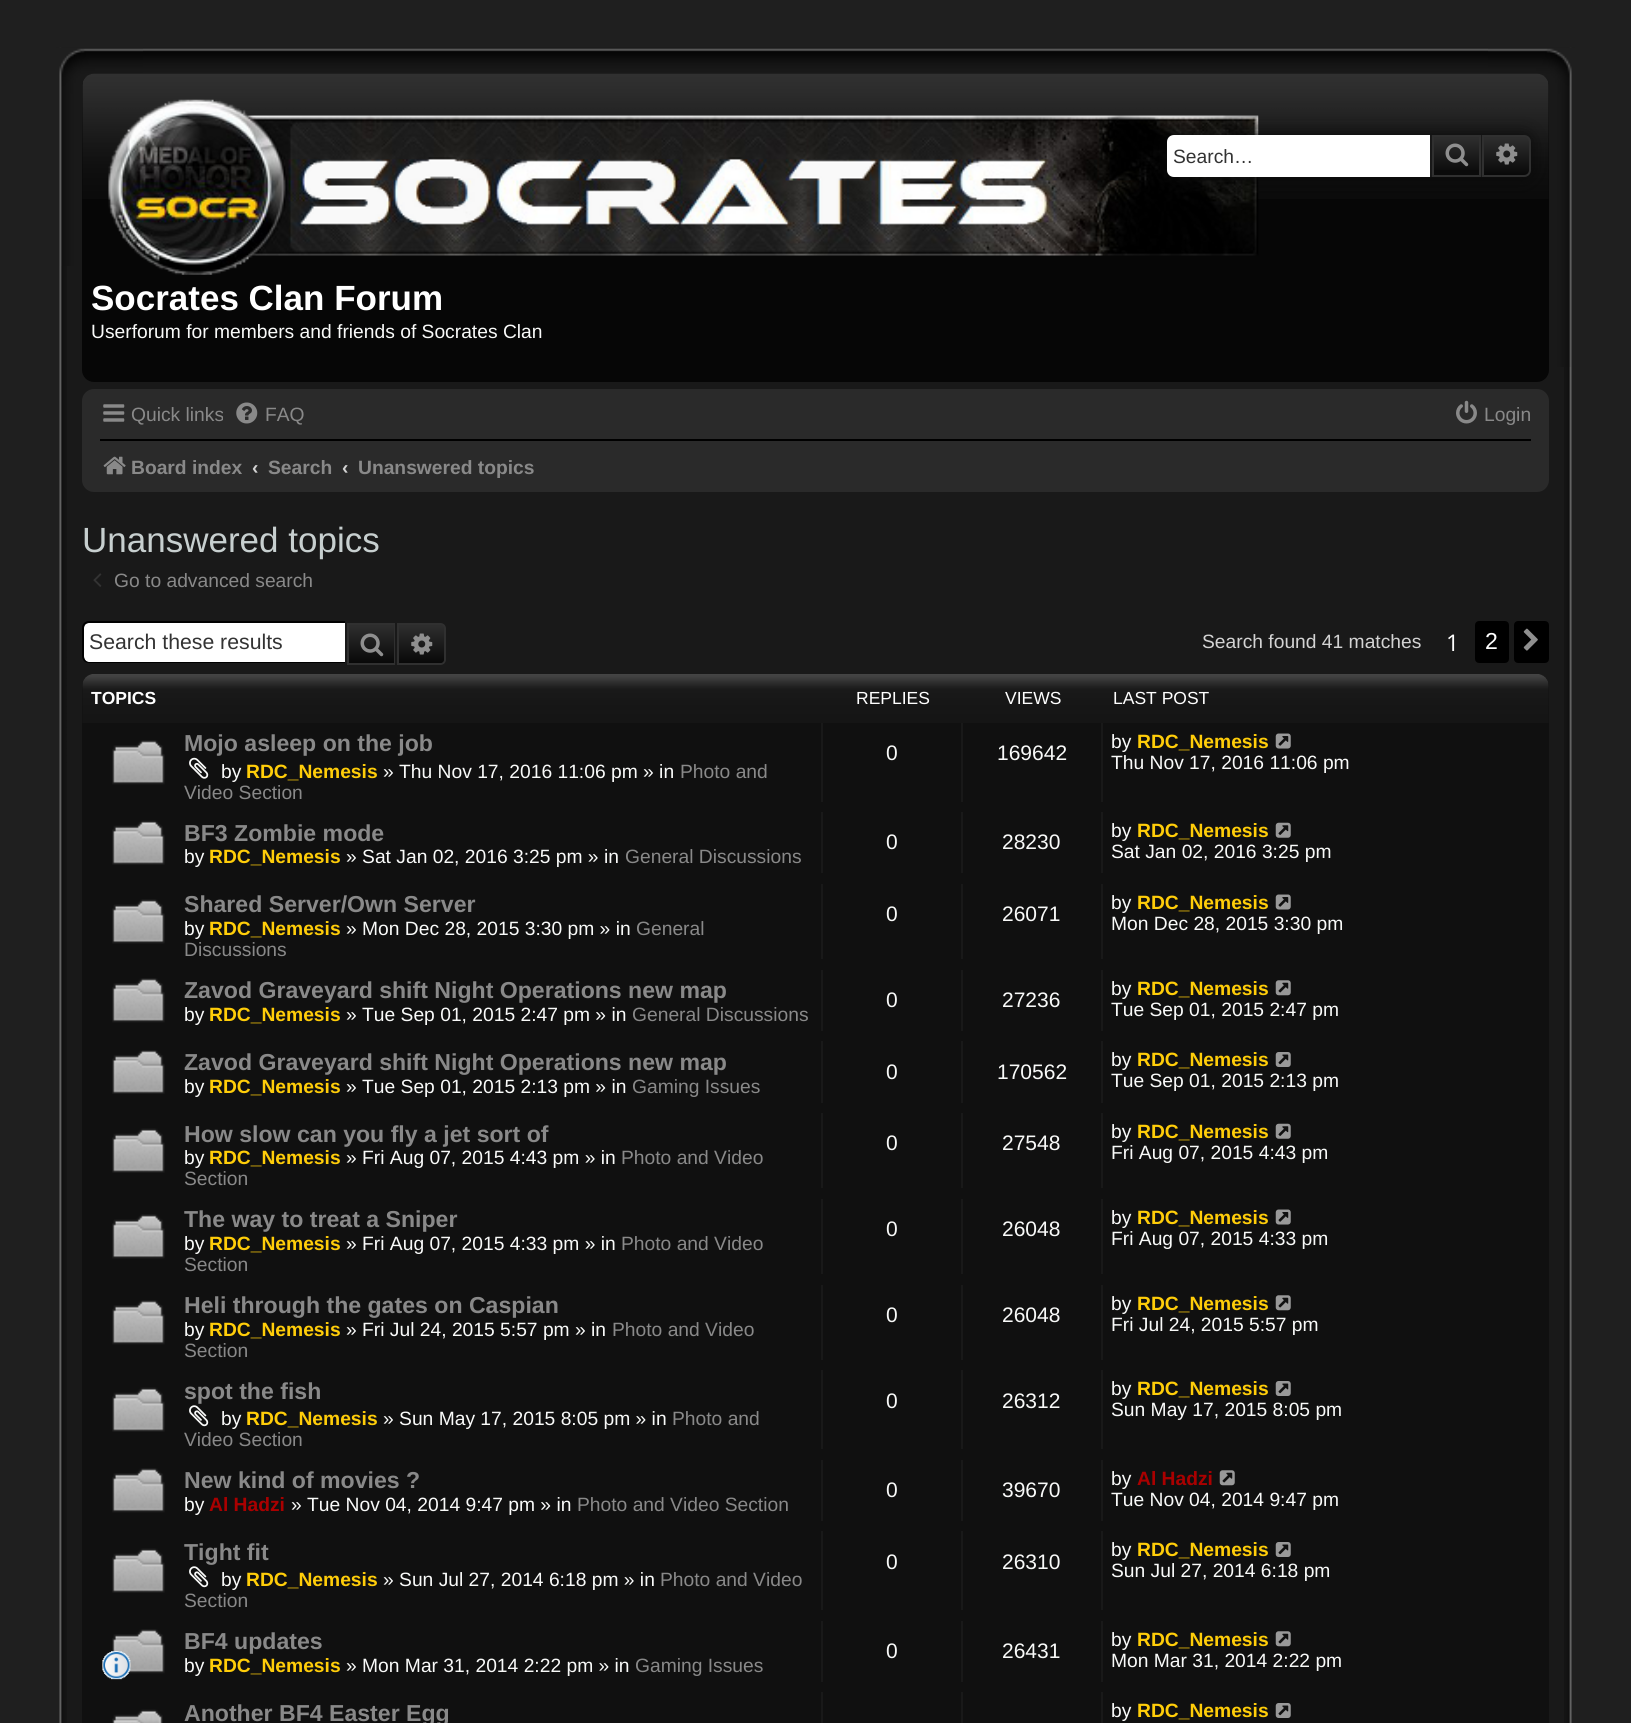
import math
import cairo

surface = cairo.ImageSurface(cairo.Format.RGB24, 1631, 1723)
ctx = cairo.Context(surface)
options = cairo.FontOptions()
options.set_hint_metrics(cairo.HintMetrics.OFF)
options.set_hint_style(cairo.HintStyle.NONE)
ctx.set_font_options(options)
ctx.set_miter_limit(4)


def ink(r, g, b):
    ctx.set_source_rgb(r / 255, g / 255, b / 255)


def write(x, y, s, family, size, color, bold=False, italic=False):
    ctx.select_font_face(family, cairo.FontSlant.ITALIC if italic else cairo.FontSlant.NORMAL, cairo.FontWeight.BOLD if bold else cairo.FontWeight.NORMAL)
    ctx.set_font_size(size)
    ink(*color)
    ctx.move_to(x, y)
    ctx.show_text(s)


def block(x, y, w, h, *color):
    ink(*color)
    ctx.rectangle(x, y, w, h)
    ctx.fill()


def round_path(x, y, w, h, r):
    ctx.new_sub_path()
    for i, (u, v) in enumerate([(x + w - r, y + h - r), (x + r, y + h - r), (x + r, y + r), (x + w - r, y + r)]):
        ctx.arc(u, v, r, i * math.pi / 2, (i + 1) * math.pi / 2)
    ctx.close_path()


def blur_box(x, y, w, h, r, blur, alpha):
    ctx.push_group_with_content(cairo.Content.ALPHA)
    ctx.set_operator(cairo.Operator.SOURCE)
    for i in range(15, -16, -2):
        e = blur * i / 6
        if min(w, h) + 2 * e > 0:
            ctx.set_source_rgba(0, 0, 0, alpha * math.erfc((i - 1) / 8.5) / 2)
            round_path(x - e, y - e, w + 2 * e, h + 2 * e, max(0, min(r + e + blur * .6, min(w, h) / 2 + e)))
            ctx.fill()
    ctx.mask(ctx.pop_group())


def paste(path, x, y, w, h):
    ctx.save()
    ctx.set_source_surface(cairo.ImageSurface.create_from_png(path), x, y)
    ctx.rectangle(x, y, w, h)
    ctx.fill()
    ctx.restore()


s1 = dict(family="Liberation Sans", size=19.25, color=(51, 51, 51))
s2 = dict(family="Liberation Sans", size=35, color=(255, 255, 255), bold=True)
s3 = dict(family="Liberation Sans", size=19.25, color=(249, 250, 249))
s4 = dict(family="Liberation Sans", size=19.25, color=(137, 137, 137))
s5 = dict(family="Liberation Sans", size=19.25, color=(137, 137, 137), bold=True)
s6 = dict(family="Liberation Sans", size=19.25, color=(211, 211, 211), bold=True)
s7 = dict(family="Liberation Sans", size=35, color=(199, 207, 207))
s8 = dict(family="Liberation Sans", size=21.25, color=(51, 51, 51))
s9 = dict(family="Liberation Sans", size=19.25, color=(211, 211, 211))
s10 = dict(family="Open Sans", size=23, color=(255, 255, 255))
s11 = dict(family="Liberation Sans", size=23.1, color=(255, 255, 255))
s12 = dict(family="Liberation Sans", size=17.5, color=(255, 255, 255), bold=True)
s13 = dict(family="Liberation Sans", size=17.5, color=(255, 255, 255))
s14 = dict(family="Liberation Sans", size=23.1, color=(137, 137, 137), bold=True)
s15 = dict(family="Liberation Sans", size=19.25, color=(255, 205, 9), bold=True)
s16 = dict(family="Liberation Sans", size=21, color=(249, 250, 249))
s17 = dict(family="Liberation Sans", size=19.25, color=(170, 0, 0), bold=True)

ink(31, 31, 31)
ctx.paint()
block(56, 47, 1519, 1676, 25, 25, 25)
paste("pic1.png", 56, 47, 11, 1676)
paste("pic2.png", 1564, 47, 11, 1676)
paste("pic3.png", 56, 47, 1519, 27)
paste("pic4.png", 56, 47, 87, 219)
paste("pic5.png", 1488, 47, 87, 320)
ink(6, 6, 6)
round_path(82, 74, 1467, 308, 12)
ctx.fill()
paste("pic6.png", 82, 73, 1467, 126)
paste("pic9.png", 108, 99, 1151, 176)
ink(9, 9, 9)
blur_box(1167, 135, 364, 42, 7, 9, 1)
ink(255, 255, 255)
ctx.new_path()
ctx.move_to(1174, 135)
ctx.line_to(1430, 135)
ctx.line_to(1430, 177)
ctx.line_to(1174, 177)
ctx.curve_to(1170, 177, 1167, 174, 1167, 170)
ctx.line_to(1167, 142)
ctx.curve_to(1167, 138, 1170, 135, 1174, 135)
ctx.close_path()
ctx.fill()
write(1173, 163, "Search…", **s1)
gradient = cairo.LinearGradient(1456, 135, 1456, 177)
gradient.add_color_stop_rgba(0, 0.188, 0.188, 0.188, 1)
gradient.add_color_stop_rgba(1, 0.027, 0.027, 0.027, 1)
ctx.set_source(gradient)
ctx.rectangle(1434, 137, 45, 33)
ctx.fill()
ctx.rectangle(1433, 136, 47, 40)
ink(48, 48, 48)
ctx.stroke()
block(1481, 135, 1, 42, 25, 25, 25)
block(1430, 135, 2, 42, 25, 25, 25)
paste("pic7.png", 1445, 143, 24, 24)
gradient = cairo.LinearGradient(1507, 135, 1507, 177)
gradient.add_color_stop_rgba(0, 0.188, 0.188, 0.188, 1)
gradient.add_color_stop_rgba(1, 0.027, 0.027, 0.027, 1)
ctx.set_source(gradient)
ctx.new_path()
ctx.move_to(1483, 136)
ctx.line_to(1524, 136)
ctx.curve_to(1527.5, 136, 1530, 138.5, 1530, 142)
ctx.line_to(1530, 170)
ctx.curve_to(1530, 173.5, 1527.5, 176, 1524, 176)
ctx.line_to(1483, 176)
ctx.close_path()
ctx.fill_preserve()
ink(48, 48, 48)
ctx.stroke()
paste("pic8.png", 1496, 143, 22, 22)
write(91, 310, "Socrates Clan Forum", **s2)
write(91, 338, "Userforum for members and friends of Socrates Clan", **s3)
ink(42, 42, 42)
round_path(82, 389, 1467, 103, 12)
ctx.fill()
paste("pic10.png", 103, 404, 22, 18)
write(131, 421, "Quick links", **s4)
paste("pic11.png", 236, 402, 22, 22)
write(265, 421, "FAQ", **s4)
paste("pic12.png", 1456, 400, 21, 24)
write(1484, 421, "Login", **s4)
block(100, 439, 1431, 2, 0, 0, 0)
paste("pic13.png", 103, 456, 23, 19)
write(131, 474, "Board index", **s5)
write(252, 474, "‹", **s6)
write(268, 474, "Search", **s5)
write(342, 474, "‹", **s6)
write(358, 474, "Unanswered topics", **s5)
write(82, 552, "Unanswered topics", **s7)
paste("pic14.png", 93, 573, 9, 14)
write(114, 587, "Go to advanced search", **s4)
ink(255, 255, 255)
ctx.new_path()
ctx.move_to(89, 623)
ctx.line_to(345, 623)
ctx.line_to(345, 662)
ctx.line_to(89, 662)
ctx.curve_to(86, 662, 84, 660, 84, 657)
ctx.line_to(84, 628)
ctx.curve_to(84, 625, 86, 623, 89, 623)
ctx.close_path()
ctx.fill()
ink(0, 0, 0)
ctx.set_fill_rule(cairo.FillRule.EVEN_ODD)
ctx.new_path()
ctx.move_to(89, 621)
ctx.line_to(345, 621)
ctx.line_to(345, 663)
ctx.line_to(89, 663)
ctx.curve_to(85, 663, 82, 660, 82, 656)
ctx.line_to(82, 628)
ctx.curve_to(82, 624, 85, 621, 89, 621)
ctx.close_path()
ctx.move_to(89, 623)
ctx.line_to(345, 623)
ctx.line_to(345, 662)
ctx.line_to(89, 662)
ctx.curve_to(86, 662, 84, 659, 84, 656)
ctx.line_to(84, 628)
ctx.curve_to(84, 625, 86, 623, 89, 623)
ctx.close_path()
ctx.fill()
write(89, 649, "Search these results", **s8)
gradient = cairo.LinearGradient(371, 623, 371, 665)
gradient.add_color_stop_rgba(0, 0.188, 0.188, 0.188, 1)
gradient.add_color_stop_rgba(1, 0.027, 0.027, 0.027, 1)
ctx.set_source(gradient)
ctx.rectangle(349, 625, 45, 38)
ctx.fill()
ctx.rectangle(348, 624, 47, 40)
ink(48, 48, 48)
ctx.stroke()
ctx.rectangle(346, 622, 50, 44)
ink(25, 25, 25)
ctx.stroke()
paste("pic15.png", 360, 633, 24, 24)
gradient = cairo.LinearGradient(422, 623, 422, 665)
gradient.add_color_stop_rgba(0, 0.188, 0.188, 0.188, 1)
gradient.add_color_stop_rgba(1, 0.027, 0.027, 0.027, 1)
ctx.set_source(gradient)
ctx.new_path()
ctx.move_to(398, 624)
ctx.line_to(441, 624)
ctx.curve_to(443, 624, 445, 626, 445, 628)
ctx.line_to(445, 660)
ctx.curve_to(445, 662, 443, 664, 441, 664)
ctx.line_to(398, 664)
ctx.close_path()
ctx.fill_preserve()
ink(48, 48, 48)
ctx.stroke()
ink(25, 25, 25)
ctx.new_path()
ctx.move_to(397, 621)
ctx.line_to(441, 621)
ctx.curve_to(445, 621, 448, 624, 448, 628)
ctx.line_to(448, 660)
ctx.curve_to(448, 664, 445, 667, 441, 667)
ctx.line_to(397, 667)
ctx.close_path()
ctx.move_to(397, 623)
ctx.line_to(441, 623)
ctx.curve_to(444, 623, 446, 625, 446, 628)
ctx.line_to(446, 660)
ctx.curve_to(446, 663, 444, 665, 441, 665)
ctx.line_to(397, 665)
ctx.close_path()
ctx.fill()
paste("pic16.png", 411, 633, 22, 22)
write(1202, 648, "Search found 41 matches", **s9)
write(1446, 651, "1", **s10)
ink(0, 0, 0)
round_path(1476, 622, 32, 40, 3)
ctx.fill_preserve()
ctx.stroke()
write(1485, 649, "2", **s11)
ink(0, 0, 0)
round_path(1515, 622, 33, 40, 3)
ctx.fill_preserve()
ctx.stroke()
paste("pic17.png", 1523, 628, 15, 23)
ink(16, 16, 16)
round_path(82, 674, 1467, 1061, 12)
ctx.fill()
paste("pic18.png", 82, 674, 1467, 49)
write(91, 704, "TOPICS", **s12)
write(856, 704, "REPLIES", **s13)
write(1005, 704, "VIEWS", **s13)
write(1113, 704, "LAST POST", **s13)
paste("pic19.png", 112, 740, 53, 45)
write(184, 751, "Mojo asleep on the job", **s14)
paste("pic20.png", 189, 757, 20, 22)
write(221, 778, "by", **s3)
write(246, 778, "RDC_Nemesis", **s15)
write(383, 778, "» Thu Nov 17, 2016 11:06 pm » in", **s3)
write(680, 778, "Photo and", **s4)
write(184, 799, "Video Section", **s4)
block(821, 723, 2, 79, 25, 25, 25)
write(886, 760, "0", **s16)
block(961, 723, 2, 79, 25, 25, 25)
write(997, 760, "169642", **s16)
block(1101, 723, 2, 79, 25, 25, 25)
write(1111, 748, "by", **s3)
write(1137, 748, "RDC_Nemesis", **s15)
paste("pic21.png", 1275, 733, 16, 16)
write(1111, 769, "Thu Nov 17, 2016 11:06 pm", **s3)
paste("pic22.png", 112, 820, 53, 45)
write(184, 841, "BF3 Zombie mode", **s14)
write(184, 863, "by", **s3)
write(209, 863, "RDC_Nemesis", **s15)
write(346, 863, "» Sat Jan 02, 2016 3:25 pm » in", **s3)
write(625, 863, "General Discussions", **s4)
block(821, 812, 2, 61, 25, 25, 25)
write(886, 849, "0", **s16)
block(961, 812, 2, 61, 25, 25, 25)
write(1002, 849, "28230", **s16)
block(1101, 812, 2, 61, 25, 25, 25)
write(1111, 837, "by", **s3)
write(1137, 837, "RDC_Nemesis", **s15)
paste("pic23.png", 1275, 822, 16, 16)
write(1111, 858, "Sat Jan 02, 2016 3:25 pm", **s3)
paste("pic24.png", 112, 899, 53, 45)
write(184, 912, "Shared Server/Own Server", **s14)
write(184, 935, "by", **s3)
write(209, 935, "RDC_Nemesis", **s15)
write(346, 935, "» Mon Dec 28, 2015 3:30 pm » in", **s3)
write(636, 935, "General", **s4)
write(184, 956, "Discussions", **s4)
block(821, 884, 2, 75, 25, 25, 25)
write(886, 921, "0", **s16)
block(961, 884, 2, 75, 25, 25, 25)
write(1002, 921, "26071", **s16)
block(1101, 884, 2, 75, 25, 25, 25)
write(1111, 909, "by", **s3)
write(1137, 909, "RDC_Nemesis", **s15)
paste("pic25.png", 1275, 894, 16, 16)
write(1111, 930, "Mon Dec 28, 2015 3:30 pm", **s3)
paste("pic19.png", 112, 978, 53, 45)
write(184, 998, "Zavod Graveyard shift Night Operations new map", **s14)
write(184, 1021, "by", **s3)
write(209, 1021, "RDC_Nemesis", **s15)
write(346, 1021, "» Tue Sep 01, 2015 2:47 pm » in", **s3)
write(632, 1021, "General Discussions", **s4)
block(821, 970, 2, 61, 25, 25, 25)
write(886, 1007, "0", **s16)
block(961, 970, 2, 61, 25, 25, 25)
write(1002, 1007, "27236", **s16)
block(1101, 970, 2, 61, 25, 25, 25)
write(1111, 995, "by", **s3)
write(1137, 995, "RDC_Nemesis", **s15)
paste("pic26.png", 1275, 980, 16, 16)
write(1111, 1016, "Tue Sep 01, 2015 2:47 pm", **s3)
paste("pic27.png", 112, 1050, 53, 44)
write(184, 1070, "Zavod Graveyard shift Night Operations new map", **s14)
write(184, 1093, "by", **s3)
write(209, 1093, "RDC_Nemesis", **s15)
write(346, 1093, "» Tue Sep 01, 2015 2:13 pm » in", **s3)
write(632, 1093, "Gaming Issues", **s4)
block(821, 1041, 2, 62, 25, 25, 25)
write(886, 1079, "0", **s16)
block(961, 1041, 2, 62, 25, 25, 25)
write(997, 1079, "170562", **s16)
block(1101, 1041, 2, 62, 25, 25, 25)
write(1111, 1066, "by", **s3)
write(1137, 1066, "RDC_Nemesis", **s15)
paste("pic28.png", 1275, 1052, 16, 15)
write(1111, 1087, "Tue Sep 01, 2015 2:13 pm", **s3)
paste("pic22.png", 112, 1128, 53, 45)
write(184, 1142, "How slow can you fly a jet sort of", **s14)
write(184, 1164, "by", **s3)
write(209, 1164, "RDC_Nemesis", **s15)
write(346, 1164, "» Fri Aug 07, 2015 4:43 pm » in", **s3)
write(621, 1164, "Photo and Video", **s4)
write(184, 1185, "Section", **s4)
block(821, 1113, 2, 75, 25, 25, 25)
write(886, 1150, "0", **s16)
block(961, 1113, 2, 75, 25, 25, 25)
write(1002, 1150, "27548", **s16)
block(1101, 1113, 2, 75, 25, 25, 25)
write(1111, 1138, "by", **s3)
write(1137, 1138, "RDC_Nemesis", **s15)
paste("pic23.png", 1275, 1123, 16, 16)
write(1111, 1159, "Fri Aug 07, 2015 4:43 pm", **s3)
paste("pic24.png", 112, 1214, 53, 45)
write(184, 1227, "The way to treat a Sniper", **s14)
write(184, 1250, "by", **s3)
write(209, 1250, "RDC_Nemesis", **s15)
write(346, 1250, "» Fri Aug 07, 2015 4:33 pm » in", **s3)
write(621, 1250, "Photo and Video", **s4)
write(184, 1271, "Section", **s4)
block(821, 1199, 2, 75, 25, 25, 25)
write(886, 1236, "0", **s16)
block(961, 1199, 2, 75, 25, 25, 25)
write(1002, 1236, "26048", **s16)
block(1101, 1199, 2, 75, 25, 25, 25)
write(1111, 1224, "by", **s3)
write(1137, 1224, "RDC_Nemesis", **s15)
paste("pic21.png", 1275, 1209, 16, 16)
write(1111, 1245, "Fri Aug 07, 2015 4:33 pm", **s3)
paste("pic19.png", 112, 1300, 53, 45)
write(184, 1313, "Heli through the gates on Caspian", **s14)
write(184, 1336, "by", **s3)
write(209, 1336, "RDC_Nemesis", **s15)
write(346, 1336, "» Fri Jul 24, 2015 5:57 pm » in", **s3)
write(612, 1336, "Photo and Video", **s4)
write(184, 1357, "Section", **s4)
block(821, 1285, 2, 75, 25, 25, 25)
write(886, 1322, "0", **s16)
block(961, 1285, 2, 75, 25, 25, 25)
write(1002, 1322, "26048", **s16)
block(1101, 1285, 2, 75, 25, 25, 25)
write(1111, 1310, "by", **s3)
write(1137, 1310, "RDC_Nemesis", **s15)
paste("pic29.png", 1275, 1295, 16, 16)
write(1111, 1331, "Fri Jul 24, 2015 5:57 pm", **s3)
paste("pic22.png", 112, 1387, 53, 45)
write(184, 1399, "spot the fish", **s14)
paste("pic30.png", 189, 1405, 20, 22)
write(221, 1425, "by", **s3)
write(246, 1425, "RDC_Nemesis", **s15)
write(383, 1425, "» Sun May 17, 2015 8:05 pm » in", **s3)
write(672, 1425, "Photo and", **s4)
write(184, 1446, "Video Section", **s4)
block(821, 1370, 2, 79, 25, 25, 25)
write(886, 1408, "0", **s16)
block(961, 1370, 2, 79, 25, 25, 25)
write(1002, 1408, "26312", **s16)
block(1101, 1370, 2, 79, 25, 25, 25)
write(1111, 1395, "by", **s3)
write(1137, 1395, "RDC_Nemesis", **s15)
paste("pic28.png", 1275, 1381, 16, 15)
write(1111, 1416, "Sun May 17, 2015 8:05 pm", **s3)
paste("pic19.png", 112, 1468, 53, 45)
write(184, 1488, "New kind of movies ?", **s14)
write(184, 1511, "by", **s3)
write(209, 1511, "Al Hadzi", **s17)
write(291, 1511, "» Tue Nov 04, 2014 9:47 pm » in", **s3)
write(577, 1511, "Photo and Video Section", **s4)
block(821, 1460, 2, 61, 25, 25, 25)
write(886, 1497, "0", **s16)
block(961, 1460, 2, 61, 25, 25, 25)
write(1002, 1497, "39670", **s16)
block(1101, 1460, 2, 61, 25, 25, 25)
write(1111, 1485, "by", **s3)
write(1137, 1485, "Al Hadzi", **s17)
paste("pic29.png", 1219, 1470, 16, 16)
write(1111, 1506, "Tue Nov 04, 2014 9:47 pm", **s3)
paste("pic22.png", 112, 1548, 53, 45)
write(184, 1560, "Tight fit", **s14)
paste("pic30.png", 189, 1566, 20, 22)
write(221, 1586, "by", **s3)
write(246, 1586, "RDC_Nemesis", **s15)
write(383, 1586, "» Sun Jul 27, 2014 6:18 pm » in", **s3)
write(660, 1586, "Photo and Video", **s4)
write(184, 1607, "Section", **s4)
block(821, 1531, 2, 79, 25, 25, 25)
write(886, 1569, "0", **s16)
block(961, 1531, 2, 79, 25, 25, 25)
write(1002, 1569, "26310", **s16)
block(1101, 1531, 2, 79, 25, 25, 25)
write(1111, 1556, "by", **s3)
write(1137, 1556, "RDC_Nemesis", **s15)
paste("pic28.png", 1275, 1542, 16, 15)
write(1111, 1577, "Sun Jul 27, 2014 6:18 pm", **s3)
paste("pic19.png", 112, 1629, 53, 45)
paste("pic31.png", 102, 1651, 29, 29)
write(184, 1649, "BF4 updates", **s14)
write(184, 1672, "by", **s3)
write(209, 1672, "RDC_Nemesis", **s15)
write(346, 1672, "» Mon Mar 31, 2014 2:22 pm » in", **s3)
write(635, 1672, "Gaming Issues", **s4)
block(821, 1621, 2, 61, 25, 25, 25)
write(886, 1658, "0", **s16)
block(961, 1621, 2, 61, 25, 25, 25)
write(1002, 1658, "26431", **s16)
block(1101, 1621, 2, 61, 25, 25, 25)
write(1111, 1646, "by", **s3)
write(1137, 1646, "RDC_Nemesis", **s15)
paste("pic29.png", 1275, 1631, 16, 16)
write(1111, 1667, "Mon Mar 31, 2014 2:22 pm", **s3)
paste("pic32.png", 112, 1709, 51, 14)
write(184, 1721, "Another BF4 Easter Egg", **s14)
block(821, 1692, 2, 31, 25, 25, 25)
block(961, 1692, 2, 31, 25, 25, 25)
block(1101, 1692, 2, 31, 25, 25, 25)
write(1111, 1717, "by", **s3)
write(1137, 1717, "RDC_Nemesis", **s15)
paste("pic28.png", 1275, 1703, 16, 15)
surface.write_to_png("screenshot.png")
